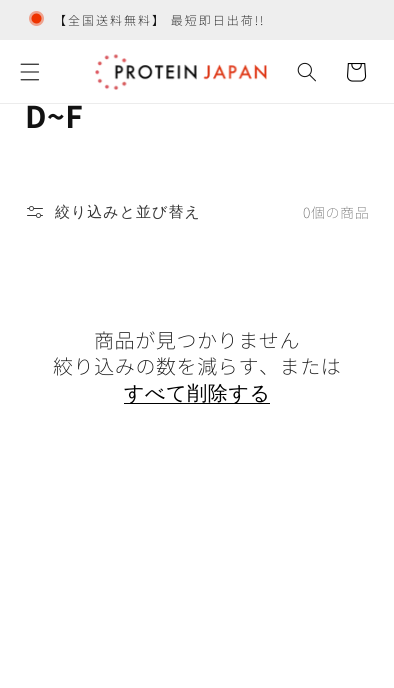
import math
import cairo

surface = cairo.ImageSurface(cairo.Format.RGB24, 394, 688)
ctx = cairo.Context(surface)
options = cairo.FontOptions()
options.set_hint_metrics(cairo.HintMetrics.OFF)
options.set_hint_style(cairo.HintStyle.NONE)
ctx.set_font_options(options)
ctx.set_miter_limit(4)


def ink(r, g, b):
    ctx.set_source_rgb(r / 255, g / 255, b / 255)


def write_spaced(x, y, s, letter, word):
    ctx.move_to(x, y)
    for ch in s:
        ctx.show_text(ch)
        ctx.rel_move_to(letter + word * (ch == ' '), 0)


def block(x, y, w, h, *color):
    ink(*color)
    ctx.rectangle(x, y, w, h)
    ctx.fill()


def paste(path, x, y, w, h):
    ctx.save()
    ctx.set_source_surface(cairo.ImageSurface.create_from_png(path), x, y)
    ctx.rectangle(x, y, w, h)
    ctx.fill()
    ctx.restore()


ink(255, 255, 255)
ctx.paint()
block(0, 0, 394, 40, 238, 238, 238)
paste("pic1.png", 29, 11, 15, 15)
ctx.select_font_face("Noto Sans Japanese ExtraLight")
ctx.set_font_size(12)
ink(18, 18, 18)
write_spaced(54, 25, "【全国送料無料】 最短即日出荷!!", 2, 0)
block(0, 103, 394, 1, 236, 236, 236)
paste("pic2.png", 20, 63, 20, 18)
paste("pic3.png", 95, 54, 172, 36)
paste("pic4.png", 297, 62, 19, 20)
paste("pic5.png", 347, 63, 20, 19)
ctx.select_font_face("Noto Sans Japanese", cairo.FontSlant.NORMAL, cairo.FontWeight.BOLD)
ctx.set_font_size(30)
ink(18, 18, 18)
write_spaced(25, 128, "D~F", 0.6, 0)
paste("pic6.png", 27, 206, 16, 12)
ctx.select_font_face("WenQuanYi Zen Hei Medium")
ctx.set_font_size(15)
ink(54, 54, 54)
write_spaced(55, 217, "絞り込みと並び替え", 1, 0)
ctx.select_font_face("Noto Sans Japanese Thin")
ctx.set_font_size(14)
ink(89, 89, 89)
write_spaced(303, 218, "0個の商品", 0.6, 0)
ctx.select_font_face("Noto Sans Japanese ExtraLight")
ctx.set_font_size(20)
ink(18, 18, 18)
write_spaced(94, 348, "商品が見つかりません", 0.6, 0)
write_spaced(53, 374, "絞り込みの数を減らす、または", 0.6, 0)
block(124, 403, 146, 1, 0, 0, 0)
ctx.select_font_face("WenQuanYi Zen Hei Medium")
write_spaced(124, 400, "すべて削除する", 0.6, 0)
surface.write_to_png("screenshot.png")
